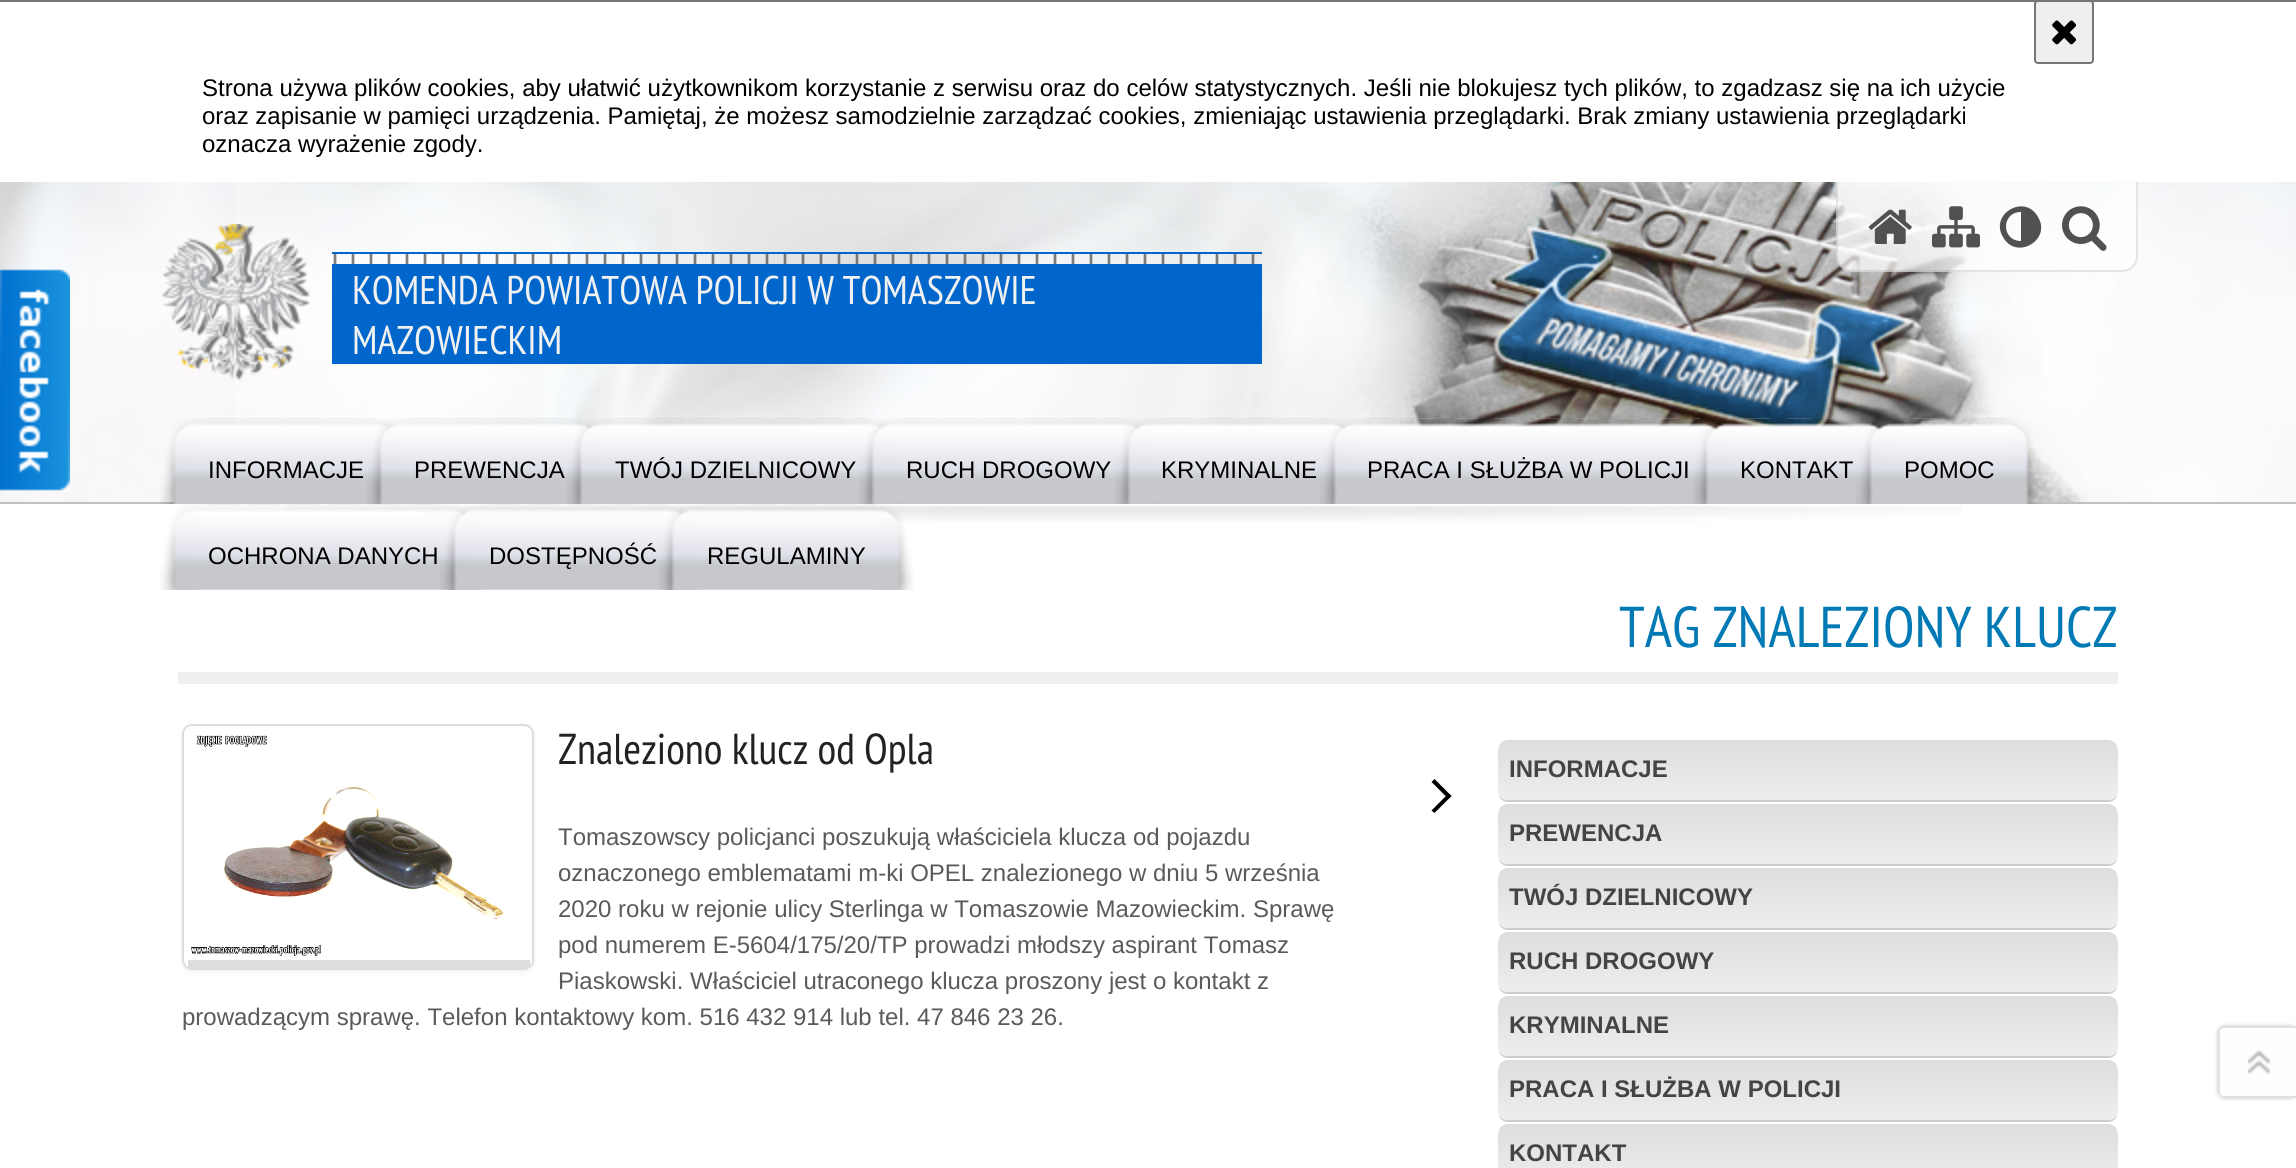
import math
import cairo

surface = cairo.ImageSurface(cairo.Format.RGB24, 2296, 1168)
ctx = cairo.Context(surface)
options = cairo.FontOptions()
options.set_hint_metrics(cairo.HintMetrics.OFF)
options.set_hint_style(cairo.HintStyle.NONE)
ctx.set_font_options(options)
ctx.set_miter_limit(4)


def ink(r, g, b):
    ctx.set_source_rgb(r / 255, g / 255, b / 255)


def write(x, y, s, family, size, color, bold=False, italic=False):
    ctx.select_font_face(family, cairo.FontSlant.ITALIC if italic else cairo.FontSlant.NORMAL, cairo.FontWeight.BOLD if bold else cairo.FontWeight.NORMAL)
    ctx.set_font_size(size)
    ink(*color)
    ctx.move_to(x, y)
    ctx.show_text(s)


def block(x, y, w, h, *color):
    ink(*color)
    ctx.rectangle(x, y, w, h)
    ctx.fill()


def round_path(x, y, w, h, r):
    ctx.new_sub_path()
    for i, (u, v) in enumerate([(x + w - r, y + h - r), (x + r, y + h - r), (x + r, y + r), (x + w - r, y + r)]):
        ctx.arc(u, v, r, i * math.pi / 2, (i + 1) * math.pi / 2)
    ctx.close_path()


def blur_box(x, y, w, h, r, blur, alpha):
    ctx.push_group_with_content(cairo.Content.ALPHA)
    ctx.set_operator(cairo.Operator.SOURCE)
    for i in range(15, -16, -2):
        e = blur * i / 6
        if min(w, h) + 2 * e > 0:
            ctx.set_source_rgba(0, 0, 0, alpha * math.erfc((i - 1) / 8.5) / 2)
            round_path(x - e, y - e, w + 2 * e, h + 2 * e, max(0, min(r + e + blur * .6, min(w, h) / 2 + e)))
            ctx.fill()
    ctx.mask(ctx.pop_group())


def paste(path, x, y, w, h):
    ctx.save()
    ctx.set_source_surface(cairo.ImageSurface.create_from_png(path), x, y)
    ctx.rectangle(x, y, w, h)
    ctx.fill()
    ctx.restore()


s1 = dict(family="Liberation Sans", size=24, color=(0, 0, 0))
s2 = dict(family="PT Sans Narrow", size=40, color=(241, 241, 241))
s3 = dict(family="PT Sans Narrow", size=57.5, color=(0, 121, 181))
s4 = dict(family="PT Sans Narrow", size=43.25, color=(34, 34, 34))
s5 = dict(family="Liberation Sans", size=24, color=(90, 90, 90))
s6 = dict(family="Liberation Sans", size=24, color=(68, 68, 68), bold=True)

ink(255, 255, 255)
ctx.paint()
block(0, 0, 2296, 2, 118, 118, 118)
ink(239, 239, 239)
round_path(2035, 1, 58, 62, 3)
ctx.fill_preserve()
ink(118, 118, 118)
ctx.stroke()
paste("pic1.png", 2052, 20, 25, 25)
write(202, 96, "Strona używa plików cookies, aby ułatwić użytkownikom korzystanie z serwisu oraz do celów statystycznych. Jeśli nie blokujesz tych plików, to zgadzasz się na ich użycie", **s1)
write(202, 124, "oraz zapisanie w pamięci urządzenia. Pamiętaj, że możesz samodzielnie zarządzać cookies, zmieniając ustawienia przeglądarki. Brak zmiany ustawienia przeglądarki", **s1)
write(202, 152, "oznacza wyrażenie zgody.", **s1)
paste("pic3.png", 0, 182, 2296, 320)
paste("pic2.png", 0, 269, 70, 222)
paste("pic4.png", 286, 505, 1676, 18)
paste("pic5.png", 235, 182, 2061, 320)
block(0, 502, 2296, 2, 193, 193, 193)
ctx.set_source_rgba(1, 1, 1, 0.7)
ctx.new_path()
ctx.move_to(1836, 182)
ctx.line_to(2138, 182)
ctx.line_to(2138, 256)
ctx.curve_to(2138, 265, 2131, 272, 2122, 272)
ctx.line_to(1852, 272)
ctx.curve_to(1843, 272, 1836, 265, 1836, 256)
ctx.close_path()
ctx.fill()
ctx.set_source_rgba(0, 0, 0, 0.1)
ctx.set_fill_rule(cairo.FillRule.EVEN_ODD)
ctx.new_path()
ctx.move_to(1836, 182)
ctx.line_to(2138, 182)
ctx.line_to(2138, 256)
ctx.curve_to(2138, 265, 2131, 272, 2122, 272)
ctx.line_to(1852, 272)
ctx.curve_to(1843, 272, 1836, 265, 1836, 256)
ctx.close_path()
ctx.move_to(1838, 182)
ctx.line_to(2136, 182)
ctx.line_to(2136, 256)
ctx.curve_to(2136, 264, 2130, 270, 2122, 270)
ctx.line_to(1852, 270)
ctx.curve_to(1844, 270, 1838, 264, 1838, 256)
ctx.close_path()
ctx.fill()
paste("pic6.png", 1868, 209, 44, 35)
paste("pic7.png", 1932, 206, 48, 42)
ink(81, 81, 81)
ctx.set_fill_rule(cairo.FillRule.WINDING)
ctx.new_path()
ctx.move_to(2021, 241)
ctx.line_to(2021, 212)
ctx.curve_to(2001, 212, 2001, 241, 2021, 241)
ctx.close_path()
ctx.move_to(2038, 217)
ctx.curve_to(2052, 240, 2016, 261, 2003, 237)
ctx.curve_to(1989, 214, 2025, 193, 2038, 217)
ctx.close_path()
ctx.fill()
paste("pic8.png", 2062, 206, 45, 45)
paste("pic9.png", 333, 254, 922, 10)
block(332, 252, 930, 2, 0, 102, 204)
paste("pic10.png", 162, 224, 149, 157)
block(332, 264, 930, 100, 0, 102, 204)
write(352, 304, "KOMENDA POWIATOWA POLICJI W TOMASZOWIE", **s2)
write(352, 354, "MAZOWIECKIM", **s2)
paste("pic11.png", 374, 418, 38, 86)
paste("pic12.png", 160, 418, 38, 86)
paste("pic13.png", 198, 418, 176, 86)
write(208, 478, "INFORMACJE", **s1)
paste("pic14.png", 574, 418, 38, 86)
paste("pic15.png", 366, 418, 38, 86)
paste("pic16.png", 404, 418, 170, 86)
write(414, 478, "PREWENCJA", **s1)
paste("pic17.png", 866, 418, 38, 86)
paste("pic18.png", 566, 418, 38, 86)
paste("pic19.png", 604, 418, 262, 86)
write(615, 478, "TWÓJ DZIELNICOWY", **s1)
paste("pic20.png", 1122, 418, 38, 86)
paste("pic21.png", 858, 418, 38, 86)
paste("pic22.png", 896, 418, 226, 86)
write(906, 478, "RUCH DROGOWY", **s1)
paste("pic23.png", 1328, 418, 38, 86)
paste("pic24.png", 1114, 418, 38, 86)
paste("pic25.png", 1152, 418, 176, 86)
write(1161, 478, "KRYMINALNE", **s1)
paste("pic26.png", 1700, 423, 38, 81)
paste("pic27.png", 1320, 418, 38, 86)
paste("pic28.png", 1358, 418, 342, 86)
write(1367, 478, "PRACA I SŁUŻBA W POLICJI", **s1)
paste("pic29.png", 1864, 422, 38, 82)
paste("pic30.png", 1692, 423, 38, 81)
paste("pic31.png", 1730, 418, 134, 86)
write(1740, 478, "KONTAKT", **s1)
paste("pic32.png", 2004, 418, 38, 86)
paste("pic33.png", 1856, 423, 38, 81)
paste("pic34.png", 1894, 418, 110, 86)
write(1904, 478, "POMOC", **s1)
paste("pic35.png", 448, 504, 38, 86)
paste("pic36.png", 160, 504, 38, 86)
paste("pic37.png", 198, 504, 250, 86)
write(208, 564, "OCHRONA DANYCH", **s1)
paste("pic38.png", 666, 504, 38, 86)
paste("pic39.png", 440, 504, 38, 86)
paste("pic40.png", 478, 504, 188, 86)
write(489, 564, "DOSTĘPNOŚĆ", **s1)
paste("pic41.png", 876, 504, 38, 86)
paste("pic42.png", 658, 504, 38, 86)
paste("pic43.png", 696, 504, 180, 86)
write(707, 564, "REGULAMINY", **s1)
block(178, 672, 1940, 12, 239, 239, 239)
write(1619, 647, "TAG ZNALEZIONY KLUCZ", **s3)
ctx.save()
ctx.set_fill_rule(cairo.FillRule.EVEN_ODD)
ctx.new_path()
ctx.move_to(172, 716)
ctx.line_to(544, 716)
ctx.line_to(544, 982)
ctx.line_to(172, 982)
ctx.close_path()
ctx.move_to(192, 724)
ctx.line_to(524, 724)
ctx.curve_to(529.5, 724, 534, 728.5, 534, 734)
ctx.line_to(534, 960)
ctx.curve_to(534, 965.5, 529.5, 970, 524, 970)
ctx.line_to(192, 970)
ctx.curve_to(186.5, 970, 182, 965.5, 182, 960)
ctx.line_to(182, 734)
ctx.curve_to(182, 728.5, 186.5, 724, 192, 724)
ctx.close_path()
ctx.clip()
ink(0, 0, 0)
blur_box(182, 726, 352, 246, 10, 3, 0.06)
ctx.restore()
round_path(183, 725, 350, 244, 9)
ink(221, 221, 221)
ctx.stroke()
block(188, 960, 342, 8, 221, 221, 221)
paste("pic44.png", 191, 735, 312, 221)
write(558, 764, "Znaleziono klucz od Opla", **s4)
ink(0, 0, 0)
ctx.new_path()
ctx.move_to(1434.5, 779)
ctx.line_to(1451.5, 796)
ctx.line_to(1448.5, 799)
ctx.line_to(1431.5, 782)
ctx.close_path()
ctx.fill()
ctx.new_path()
ctx.move_to(1448.5, 793.5)
ctx.line_to(1451.5, 796)
ctx.line_to(1434.5, 813)
ctx.line_to(1431.5, 810.5)
ctx.close_path()
ctx.fill()
write(558, 845, "Tomaszowscy policjanci poszukują właściciela klucza od pojazdu", **s5)
write(558, 881, "oznaczonego emblematami m-ki OPEL znalezionego w dniu 5 września", **s5)
write(558, 917, "2020 roku w rejonie ulicy Sterlinga w Tomaszowie Mazowieckim. Sprawę", **s5)
write(558, 953, "pod numerem E-5604/175/20/TP prowadzi młodszy aspirant Tomasz", **s5)
write(558, 989, "Piaskowski. Właściciel utraconego klucza proszony jest o kontakt z", **s5)
write(182, 1025, "prowadzącym sprawę. Telefon kontaktowy kom. 516 432 914 lub tel. 47 846 23 26.", **s5)
ink(204, 204, 204)
ctx.new_path()
ctx.move_to(1498, 790)
ctx.curve_to(1498, 796, 1501, 802, 1508, 802)
ctx.line_to(2108, 802)
ctx.curve_to(2115, 802, 2118, 796, 2118, 790)
ctx.curve_to(2118, 796, 2114, 800, 2108, 800)
ctx.line_to(1508, 800)
ctx.curve_to(1502, 800, 1498, 796, 1498, 790)
ctx.close_path()
ctx.fill()
gradient = cairo.LinearGradient(1808, 800, 1808, 740)
gradient.add_color_stop_rgba(0, 0.933, 0.933, 0.933, 1)
gradient.add_color_stop_rgba(1, 0.867, 0.867, 0.867, 1)
ctx.set_source(gradient)
round_path(1498, 740, 620, 60, 10)
ctx.fill()
write(1509, 777, "INFORMACJE", **s6)
ink(204, 204, 204)
ctx.new_path()
ctx.move_to(1498, 854)
ctx.curve_to(1498, 860, 1501, 866, 1508, 866)
ctx.line_to(2108, 866)
ctx.curve_to(2115, 866, 2118, 860, 2118, 854)
ctx.curve_to(2118, 860, 2114, 864, 2108, 864)
ctx.line_to(1508, 864)
ctx.curve_to(1502, 864, 1498, 860, 1498, 854)
ctx.close_path()
ctx.fill()
gradient = cairo.LinearGradient(1808, 864, 1808, 804)
gradient.add_color_stop_rgba(0, 0.933, 0.933, 0.933, 1)
gradient.add_color_stop_rgba(1, 0.867, 0.867, 0.867, 1)
ctx.set_source(gradient)
round_path(1498, 804, 620, 60, 10)
ctx.fill()
write(1509, 841, "PREWENCJA", **s6)
ink(204, 204, 204)
ctx.new_path()
ctx.move_to(1498, 918)
ctx.curve_to(1498, 924, 1501, 930, 1508, 930)
ctx.line_to(2108, 930)
ctx.curve_to(2115, 930, 2118, 924, 2118, 918)
ctx.curve_to(2118, 924, 2114, 928, 2108, 928)
ctx.line_to(1508, 928)
ctx.curve_to(1502, 928, 1498, 924, 1498, 918)
ctx.close_path()
ctx.fill()
gradient = cairo.LinearGradient(1808, 928, 1808, 868)
gradient.add_color_stop_rgba(0, 0.933, 0.933, 0.933, 1)
gradient.add_color_stop_rgba(1, 0.867, 0.867, 0.867, 1)
ctx.set_source(gradient)
round_path(1498, 868, 620, 60, 10)
ctx.fill()
write(1509, 905, "TWÓJ DZIELNICOWY", **s6)
ink(204, 204, 204)
ctx.new_path()
ctx.move_to(1498, 982)
ctx.curve_to(1498, 988, 1501, 994, 1508, 994)
ctx.line_to(2108, 994)
ctx.curve_to(2115, 994, 2118, 988, 2118, 982)
ctx.curve_to(2118, 988, 2114, 992, 2108, 992)
ctx.line_to(1508, 992)
ctx.curve_to(1502, 992, 1498, 988, 1498, 982)
ctx.close_path()
ctx.fill()
gradient = cairo.LinearGradient(1808, 992, 1808, 932)
gradient.add_color_stop_rgba(0, 0.933, 0.933, 0.933, 1)
gradient.add_color_stop_rgba(1, 0.867, 0.867, 0.867, 1)
ctx.set_source(gradient)
round_path(1498, 932, 620, 60, 10)
ctx.fill()
write(1509, 969, "RUCH DROGOWY", **s6)
ink(204, 204, 204)
ctx.new_path()
ctx.move_to(1498, 1046)
ctx.curve_to(1498, 1052, 1501, 1058, 1508, 1058)
ctx.line_to(2108, 1058)
ctx.curve_to(2115, 1058, 2118, 1052, 2118, 1046)
ctx.curve_to(2118, 1052, 2114, 1056, 2108, 1056)
ctx.line_to(1508, 1056)
ctx.curve_to(1502, 1056, 1498, 1052, 1498, 1046)
ctx.close_path()
ctx.fill()
gradient = cairo.LinearGradient(1808, 1056, 1808, 996)
gradient.add_color_stop_rgba(0, 0.933, 0.933, 0.933, 1)
gradient.add_color_stop_rgba(1, 0.867, 0.867, 0.867, 1)
ctx.set_source(gradient)
round_path(1498, 996, 620, 60, 10)
ctx.fill()
write(1509, 1033, "KRYMINALNE", **s6)
ink(204, 204, 204)
ctx.new_path()
ctx.move_to(1498, 1110)
ctx.curve_to(1498, 1116, 1501, 1122, 1508, 1122)
ctx.line_to(2108, 1122)
ctx.curve_to(2115, 1122, 2118, 1116, 2118, 1110)
ctx.curve_to(2118, 1116, 2114, 1120, 2108, 1120)
ctx.line_to(1508, 1120)
ctx.curve_to(1502, 1120, 1498, 1116, 1498, 1110)
ctx.close_path()
ctx.fill()
gradient = cairo.LinearGradient(1808, 1120, 1808, 1060)
gradient.add_color_stop_rgba(0, 0.933, 0.933, 0.933, 1)
gradient.add_color_stop_rgba(1, 0.867, 0.867, 0.867, 1)
ctx.set_source(gradient)
round_path(1498, 1060, 620, 60, 10)
ctx.fill()
write(1509, 1097, "PRACA I SŁUŻBA W POLICJI", **s6)
gradient = cairo.LinearGradient(1808, 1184, 1808, 1124)
gradient.add_color_stop_rgba(0, 0.933, 0.933, 0.933, 1)
gradient.add_color_stop_rgba(1, 0.867, 0.867, 0.867, 1)
ctx.set_source(gradient)
round_path(1498, 1124, 620, 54, 10)
ctx.fill()
write(1509, 1161, "KONTAKT", **s6)
ink(0, 0, 0)
blur_box(2218, 1026, 78, 72, 6, 2, 0.25)
ink(254, 254, 254)
ctx.new_path()
ctx.move_to(2224, 1026)
ctx.line_to(2296, 1026)
ctx.line_to(2296, 1098)
ctx.line_to(2224, 1098)
ctx.curve_to(2220.5, 1098, 2218, 1095.5, 2218, 1092)
ctx.line_to(2218, 1032)
ctx.curve_to(2218, 1028.5, 2220.5, 1026, 2224, 1026)
ctx.close_path()
ctx.fill()
ink(225, 225, 225)
ctx.set_fill_rule(cairo.FillRule.EVEN_ODD)
ctx.new_path()
ctx.move_to(2224, 1026)
ctx.line_to(2296, 1026)
ctx.line_to(2296, 1098)
ctx.line_to(2224, 1098)
ctx.curve_to(2221, 1098, 2218, 1095, 2218, 1092)
ctx.line_to(2218, 1032)
ctx.curve_to(2218, 1029, 2221, 1026, 2224, 1026)
ctx.close_path()
ctx.move_to(2224, 1028)
ctx.line_to(2296, 1028)
ctx.line_to(2296, 1096)
ctx.line_to(2224, 1096)
ctx.curve_to(2222, 1096, 2220, 1094, 2220, 1092)
ctx.line_to(2220, 1032)
ctx.curve_to(2220, 1030, 2222, 1028, 2224, 1028)
ctx.close_path()
ctx.fill()
paste("pic45.png", 2248, 1050, 22, 24)
surface.write_to_png("screenshot.png")
